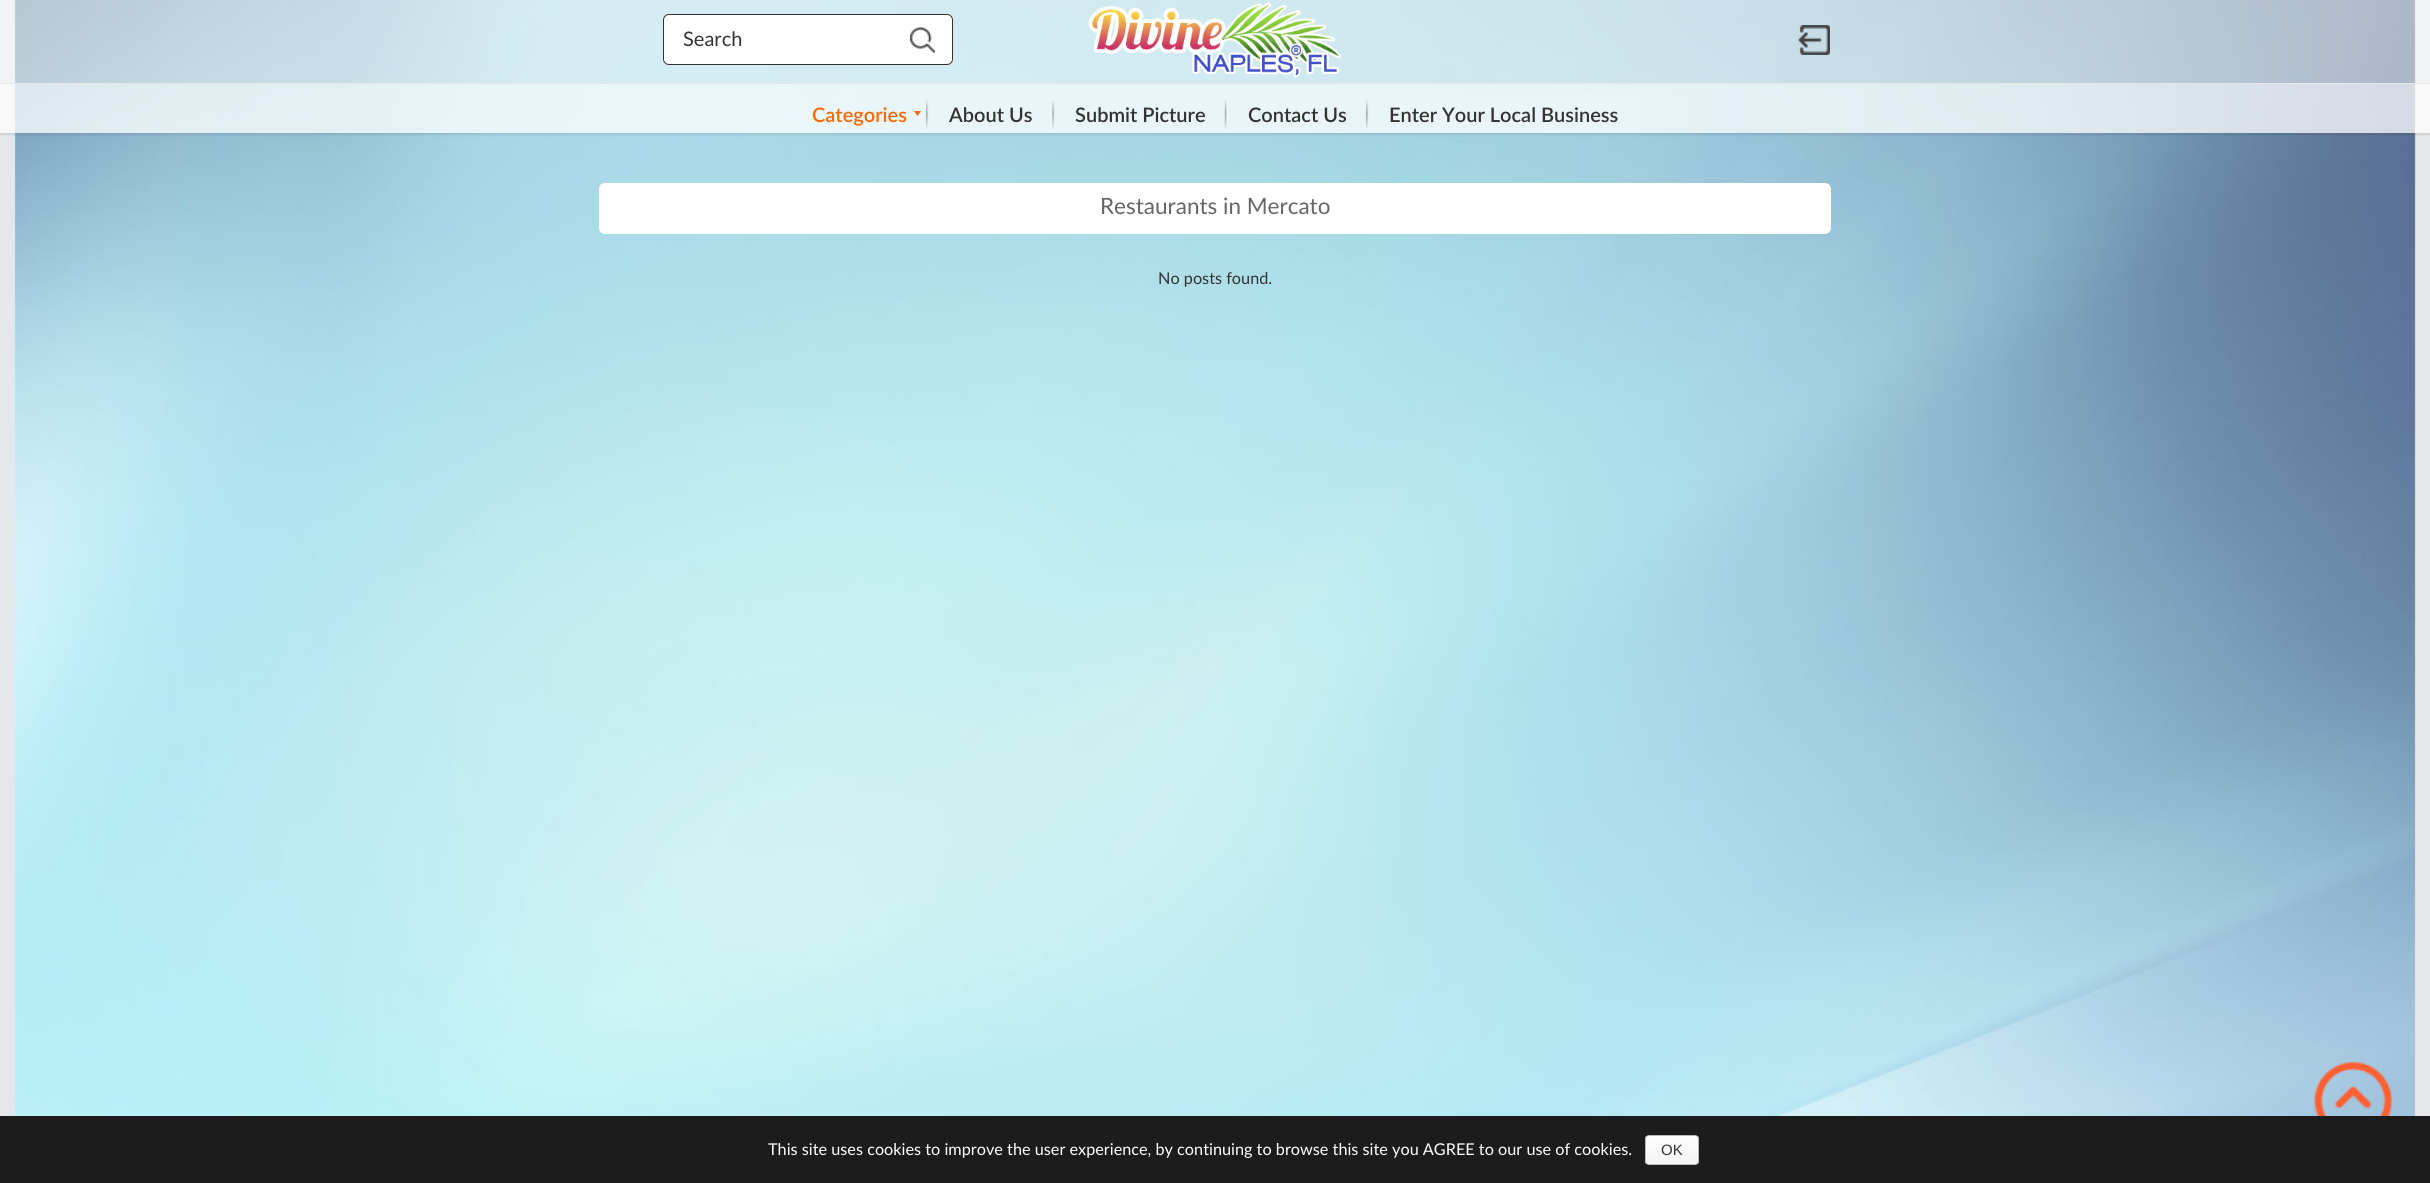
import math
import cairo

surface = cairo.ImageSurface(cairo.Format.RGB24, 2430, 1183)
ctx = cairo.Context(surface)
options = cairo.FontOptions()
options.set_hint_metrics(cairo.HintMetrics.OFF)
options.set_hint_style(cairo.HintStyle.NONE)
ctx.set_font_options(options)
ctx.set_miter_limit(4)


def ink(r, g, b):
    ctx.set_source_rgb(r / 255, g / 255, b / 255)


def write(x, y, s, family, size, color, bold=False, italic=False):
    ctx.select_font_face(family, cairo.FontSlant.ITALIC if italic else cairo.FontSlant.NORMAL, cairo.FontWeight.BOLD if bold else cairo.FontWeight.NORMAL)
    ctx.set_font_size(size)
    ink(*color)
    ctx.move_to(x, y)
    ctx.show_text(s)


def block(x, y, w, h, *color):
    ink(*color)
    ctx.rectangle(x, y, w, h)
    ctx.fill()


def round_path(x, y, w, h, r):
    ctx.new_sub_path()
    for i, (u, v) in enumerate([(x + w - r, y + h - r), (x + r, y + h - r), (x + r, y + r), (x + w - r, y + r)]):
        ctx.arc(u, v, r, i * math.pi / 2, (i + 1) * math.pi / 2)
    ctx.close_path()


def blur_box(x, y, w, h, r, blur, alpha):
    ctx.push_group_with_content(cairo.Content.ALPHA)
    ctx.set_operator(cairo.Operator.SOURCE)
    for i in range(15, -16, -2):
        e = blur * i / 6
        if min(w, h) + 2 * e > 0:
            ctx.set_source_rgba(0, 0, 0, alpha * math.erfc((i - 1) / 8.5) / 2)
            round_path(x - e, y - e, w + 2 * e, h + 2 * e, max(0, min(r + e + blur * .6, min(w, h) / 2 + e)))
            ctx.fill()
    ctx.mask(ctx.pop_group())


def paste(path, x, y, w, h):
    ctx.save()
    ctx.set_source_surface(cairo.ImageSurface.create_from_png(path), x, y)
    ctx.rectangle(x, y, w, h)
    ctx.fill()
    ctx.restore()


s1 = dict(family="Lato", size=20, color=(51, 51, 51))
s2 = dict(family="Lato SemiBold", size=20, color=(255, 103, 0))
s3 = dict(family="Lato SemiBold", size=20, color=(51, 51, 51))
s4 = dict(family="Lato", size=22.5, color=(102, 102, 102))
s5 = dict(family="Lato", size=16.25, color=(51, 51, 51))
s6 = dict(family="Lato", size=16.25, color=(255, 255, 255))
s7 = dict(family="Liberation Sans", size=15, color=(51, 51, 51))

ink(229, 231, 234)
ctx.paint()
paste("pic1.png", 14, 0, 2402, 1116)
ctx.save()
ctx.set_fill_rule(cairo.FillRule.EVEN_ODD)
ctx.new_path()
ctx.move_to(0, 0)
ctx.line_to(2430, 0)
ctx.line_to(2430, 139)
ctx.line_to(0, 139)
ctx.close_path()
ctx.move_to(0, 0)
ctx.line_to(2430, 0)
ctx.line_to(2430, 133)
ctx.line_to(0, 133)
ctx.close_path()
ctx.clip()
ink(0, 0, 0)
blur_box(0, 3, 2430, 132, 0, 1, 0.1)
ctx.restore()
ctx.set_source_rgba(1, 1, 1, 0.5)
ctx.rectangle(0, 0, 2430, 133)
ctx.fill()
ink(255, 255, 255)
round_path(663.5, 14.5, 289, 50, 5.5)
ctx.fill_preserve()
ink(51, 51, 51)
ctx.set_line_width(1)
ctx.stroke()
write(683, 46, "Search", **s1)
paste("pic2.png", 910, 27, 25, 26)
paste("pic3.png", 1088, 2, 254, 76)
paste("pic4.png", 1798, 25, 32, 30)
ctx.set_source_rgba(1, 1, 1, 0.5)
ctx.rectangle(0, 84, 2430, 49)
ctx.fill()
block(0, 83, 2430, 1, 229, 231, 234)
block(790, 132, 578, 1, 233, 245, 249)
write(812, 122, "Categories", **s2)
ctx.new_path()
ctx.move_to(914, 111)
ctx.line_to(921, 111)
ctx.line_to(917.5, 116)
ctx.close_path()
ctx.fill()
paste("pic5.png", 926, 99, 3, 30)
write(949, 122, "About Us", **s3)
paste("pic6.png", 1052, 100, 3, 29)
write(1075, 122, "Submit Picture", **s3)
paste("pic7.png", 1224, 99, 3, 30)
write(1248, 122, "Contact Us", **s3)
block(1368, 95, 272, 38, 233, 245, 249)
paste("pic8.png", 1366, 99, 3, 30)
write(1389, 122, "Enter Your Local Business", **s3)
ink(255, 255, 255)
round_path(599, 183, 1232, 51, 6)
ctx.fill()
write(1100, 214, "Restaurants in Mercato", **s4)
write(1158, 284, "No posts found.", **s5)
paste("pic9.png", 2313, 1061, 80, 55)
block(0, 1116, 2430, 67, 28, 28, 28)
write(768, 1155, "This site uses cookies to improve the user experience, by continuing to browse this site you AGREE to our use of cookies.", **s6)
ctx.save()
round_path(1645, 1135, 54, 30, 4)
ctx.clip()
gradient = cairo.LinearGradient(1672, 1136, 1672, 1164)
gradient.add_color_stop_rgba(0, 0.996, 0.996, 0.996, 1)
gradient.add_color_stop_rgba(1, 0.957, 0.957, 0.957, 1)
ctx.set_source(gradient)
ctx.rectangle(1645, 1136, 54, 28)
ctx.fill()
ctx.restore()
round_path(1645.5, 1135.5, 53, 29, 3.5)
ink(187, 187, 187)
ctx.stroke()
write(1661, 1155, "OK", **s7)
surface.write_to_png("screenshot.png")
